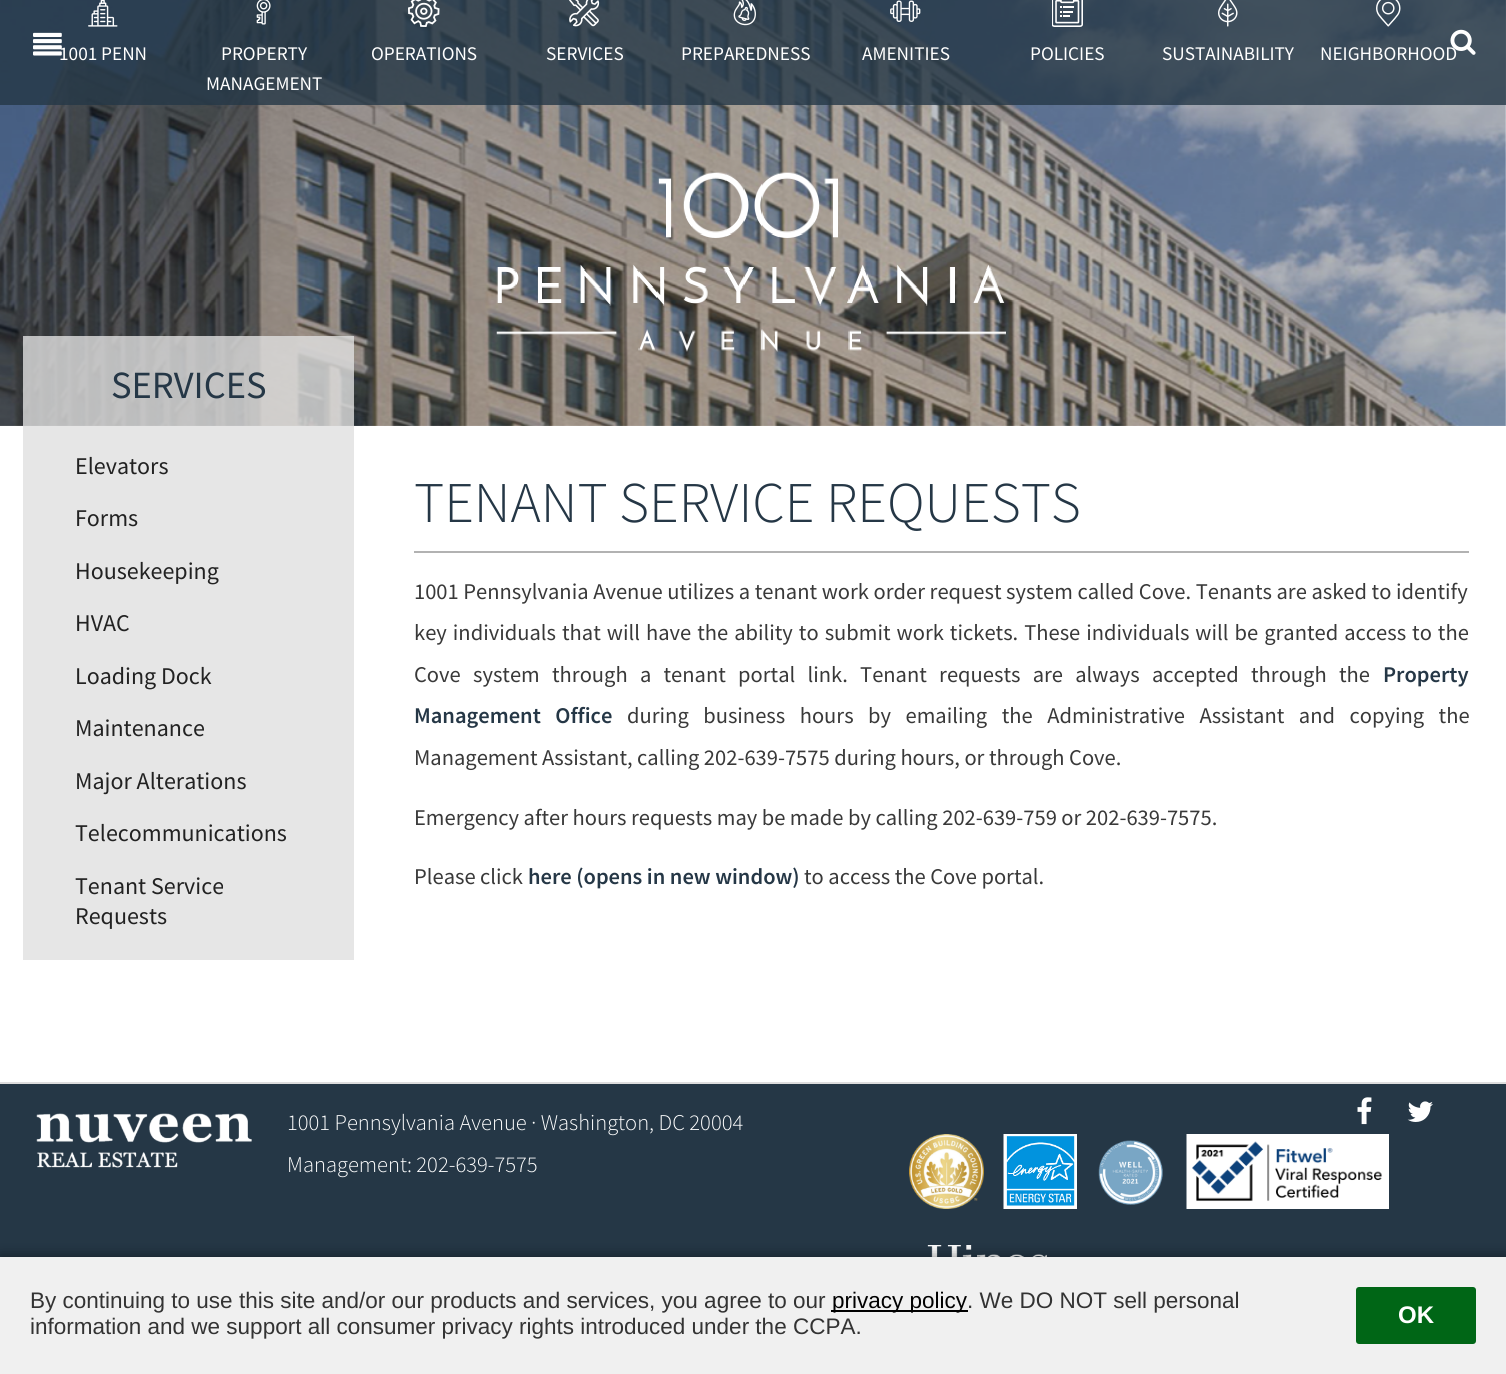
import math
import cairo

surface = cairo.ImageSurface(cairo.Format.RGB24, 1506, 1374)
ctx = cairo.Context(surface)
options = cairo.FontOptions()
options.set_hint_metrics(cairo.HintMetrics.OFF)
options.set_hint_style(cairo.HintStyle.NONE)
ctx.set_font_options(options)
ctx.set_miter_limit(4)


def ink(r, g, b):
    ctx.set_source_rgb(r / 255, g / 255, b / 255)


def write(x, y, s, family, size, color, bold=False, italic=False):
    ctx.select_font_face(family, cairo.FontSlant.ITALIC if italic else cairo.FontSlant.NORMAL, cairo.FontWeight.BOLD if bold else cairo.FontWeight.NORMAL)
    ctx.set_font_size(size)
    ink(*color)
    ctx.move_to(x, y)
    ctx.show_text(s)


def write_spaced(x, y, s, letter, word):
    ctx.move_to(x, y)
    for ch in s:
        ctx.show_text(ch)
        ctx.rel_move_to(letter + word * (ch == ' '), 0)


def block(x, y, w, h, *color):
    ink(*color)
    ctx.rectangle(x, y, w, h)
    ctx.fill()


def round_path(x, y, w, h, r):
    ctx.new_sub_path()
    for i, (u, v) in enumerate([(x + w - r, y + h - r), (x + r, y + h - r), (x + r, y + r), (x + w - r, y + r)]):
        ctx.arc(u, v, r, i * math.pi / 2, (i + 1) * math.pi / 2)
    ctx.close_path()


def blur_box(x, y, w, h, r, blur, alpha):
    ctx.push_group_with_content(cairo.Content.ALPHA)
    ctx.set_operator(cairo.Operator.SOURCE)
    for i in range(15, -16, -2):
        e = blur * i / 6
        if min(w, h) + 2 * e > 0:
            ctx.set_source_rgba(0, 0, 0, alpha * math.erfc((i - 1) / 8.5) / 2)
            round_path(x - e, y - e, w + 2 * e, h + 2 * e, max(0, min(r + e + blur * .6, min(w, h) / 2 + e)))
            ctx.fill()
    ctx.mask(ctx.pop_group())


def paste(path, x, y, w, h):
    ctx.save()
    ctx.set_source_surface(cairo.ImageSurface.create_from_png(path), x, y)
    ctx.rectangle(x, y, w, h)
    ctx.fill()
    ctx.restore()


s1 = dict(family="Source Sans Pro", size=19.25, color=(255, 255, 255))
s2 = dict(family="Source Sans Pro", size=38.5, color=(37, 55, 70))
s3 = dict(family="Source Sans Pro", size=24, color=(34, 34, 34))
s4 = dict(family="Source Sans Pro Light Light", size=57.6, color=(37, 55, 70))
s5 = dict(family="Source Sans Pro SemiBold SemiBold", size=22.5, color=(37, 55, 70))
s6 = dict(family="Source Sans Pro", size=22.5, color=(57, 57, 57))
s7 = dict(family="Source Sans Pro Light Light", size=22.5, color=(255, 255, 255))
s8 = dict(family="Liberation Sans", size=22.5, color=(51, 51, 51))
s9 = dict(family="Liberation Sans", size=22.5, color=(0, 0, 0))
s10 = dict(family="Liberation Sans", size=24, color=(255, 255, 255), bold=True)

ink(255, 255, 255)
ctx.paint()
paste("pic12.png", 0, 0, 1506, 426)
ctx.set_source_rgba(0.145, 0.216, 0.275, 0.8)
ctx.rectangle(0, 0, 1506, 105)
ctx.fill()
write(59, 60, "1001 PENN", **s1)
paste("pic1.png", 33, 32, 29, 24)
write(1320, 60, "NEIGHBORHOOD", **s1)
paste("pic2.png", 1450, 29, 26, 26)
paste("pic3.png", 88, 0, 30, 27)
paste("pic4.png", 256, 0, 15, 25)
write(221, 60, "PROPERTY", **s1)
write(206, 90, "MANAGEMENT", **s1)
paste("pic5.png", 408, 0, 32, 27)
write(371, 60, "OPERATIONS", **s1)
paste("pic6.png", 569, 0, 31, 27)
write(546, 60, "SERVICES", **s1)
paste("pic7.png", 733, 0, 23, 26)
write(681, 60, "PREPAREDNESS", **s1)
paste("pic8.png", 890, 0, 31, 22)
write(862, 60, "AMENITIES", **s1)
paste("pic9.png", 1052, 0, 31, 27)
write(1030, 60, "POLICIES", **s1)
paste("pic10.png", 1218, 0, 20, 27)
write(1162, 60, "SUSTAINABILITY", **s1)
paste("pic11.png", 1376, 0, 25, 27)
paste("pic13.png", 496, 172, 510, 180)
ctx.set_source_rgba(0.878, 0.878, 0.878, 0.8)
ctx.rectangle(23, 336, 331, 624)
ctx.fill()
write(111, 398, "SERVICES", **s2)
write(75, 474, "Elevators", **s3)
write(75, 526, "Forms", **s3)
write(75, 579, "Housekeeping", **s3)
write(75, 631, "HVAC", **s3)
write(75, 684, "Loading Dock", **s3)
write(75, 736, "Maintenance", **s3)
write(75, 789, "Major Alterations", **s3)
write(75, 841, "Telecommunications", **s3)
write(75, 894, "Tenant Service", **s3)
write(75, 924, "Requests", **s3)
block(414, 551, 1055, 2, 178, 178, 178)
write(414, 522, "TENANT SERVICE REQUESTS", **s4)
ctx.select_font_face("Source Sans Pro")
ctx.set_font_size(22.5)
ink(57, 57, 57)
write_spaced(414, 599, "1001 Pennsylvania Avenue utilizes a tenant work order request system called Cove. Tenants are asked to identify", 0, 0.1)
write_spaced(414, 640, "key individuals that will have the ability to submit work tickets. These individuals will be granted access to the", 0, 1.5)
write_spaced(414, 682, "Cove system through a tenant portal link. Tenant requests are always accepted through the", 0, 7.75)
write(1383, 682, "Property", **s5)
write_spaced(414, 723, "Management Office", 0, 10)
ctx.select_font_face("Source Sans Pro")
ink(57, 57, 57)
write_spaced(627, 723, "during business hours by emailing the Administrative Assistant and copying the", 0, 10)
write(414, 765, "Management Assistant, calling 202-639-7575 during hours, or through Cove.", **s6)
write(414, 825, "Emergency after hours requests may be made by calling 202-639-759 or 202-639-7575.", **s6)
write(414, 884, "Please click", **s6)
write(528, 884, "here (opens in new window)", **s5)
write(804, 884, "to access the Cove portal.", **s6)
block(0, 1084, 1506, 173, 37, 55, 70)
block(0, 1082, 1506, 2, 221, 221, 221)
paste("pic14.png", 36, 1113, 216, 55)
write(287, 1130, "1001 Pennsylvania Avenue · Washington, DC 20004", **s7)
write(287, 1172, "Management: 202-639-7575", **s7)
paste("pic15.png", 1357, 1097, 15, 28)
paste("pic16.png", 1407, 1101, 26, 21)
paste("pic17.png", 909, 1134, 75, 75)
paste("pic18.png", 1003, 1134, 74, 75)
paste("pic19.png", 1098, 1140, 65, 65)
paste("pic20.png", 1186, 1134, 203, 75)
paste("pic21.png", 927, 1245, 120, 12)
ink(0, 0, 0)
blur_box(0, 1257, 1506, 117, 0, 7.5, 0.5)
block(0, 1257, 1506, 117, 240, 240, 240)
write(30, 1308, "By continuing to use this site and/or our products and services, you agree to our", **s8)
block(831, 1310, 137, 2, 0, 0, 0)
write(832, 1308, "privacy policy", **s9)
write(967, 1308, ". We DO NOT sell personal", **s8)
write(30, 1334, "information and we support all consumer privacy rights introduced under the CCPA.", **s8)
ink(0, 102, 22)
round_path(1356, 1287, 120, 57, 3)
ctx.fill()
write(1398, 1323, "OK", **s10)
surface.write_to_png("screenshot.png")
